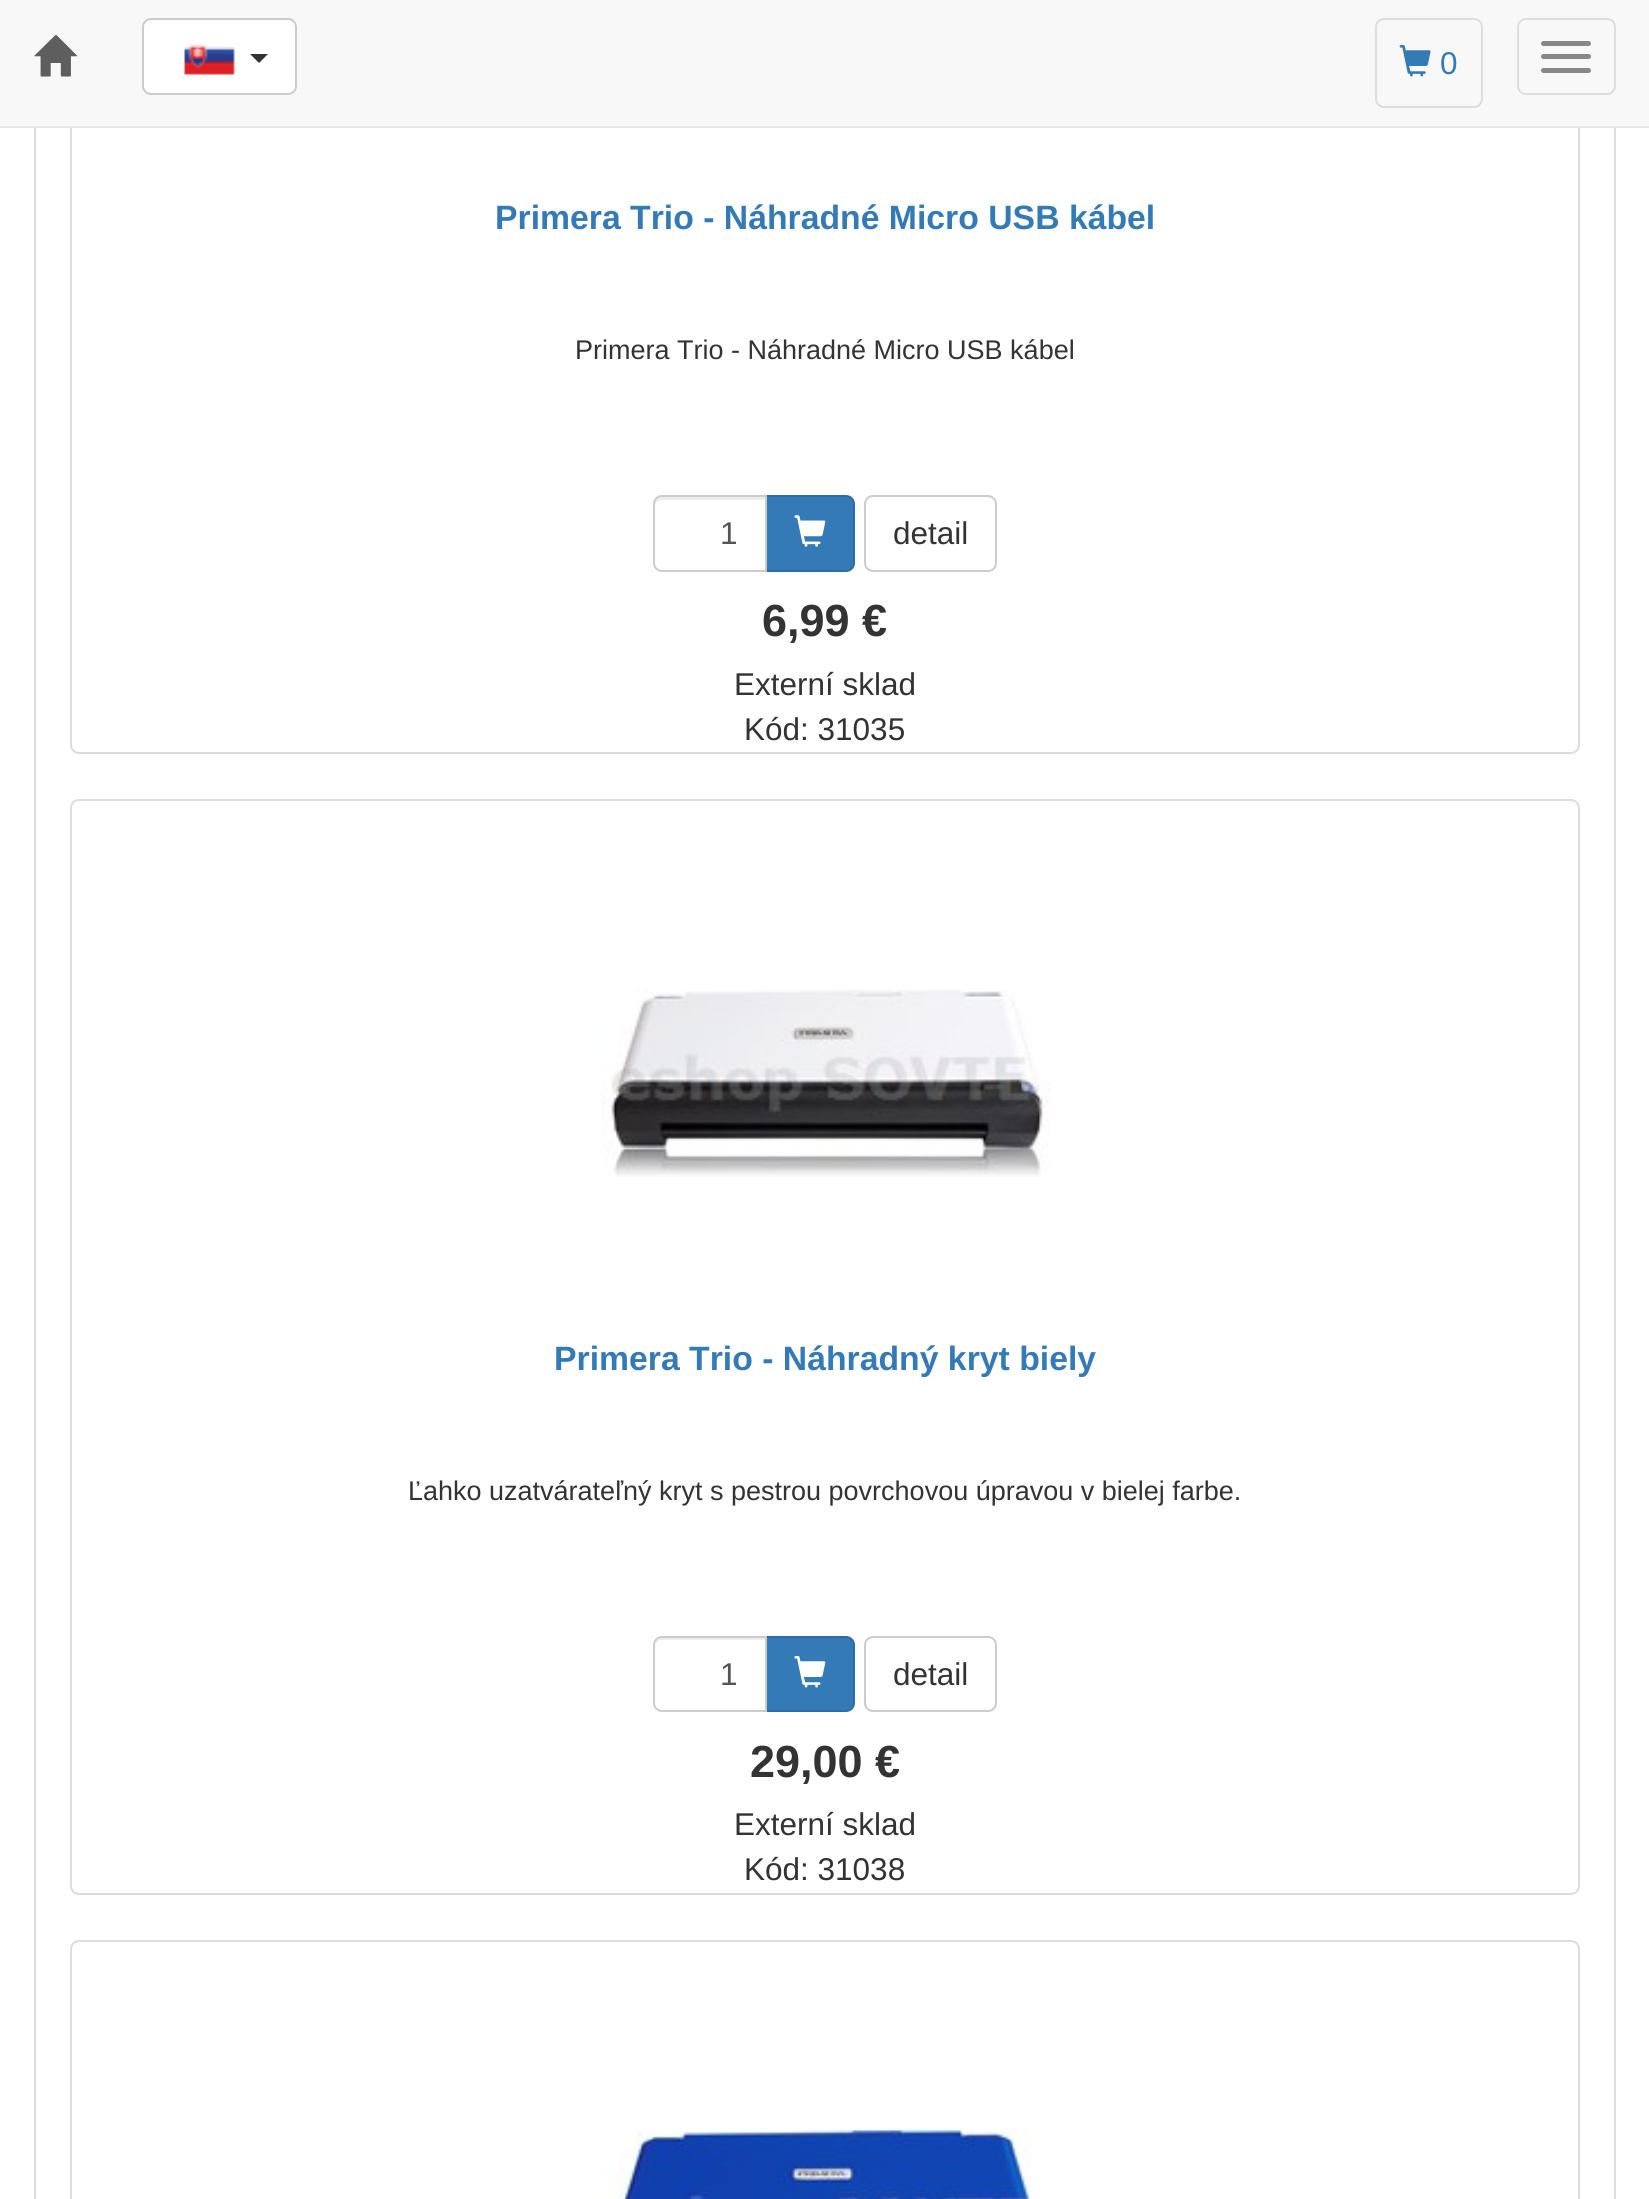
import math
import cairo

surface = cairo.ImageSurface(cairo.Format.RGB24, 1649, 2199)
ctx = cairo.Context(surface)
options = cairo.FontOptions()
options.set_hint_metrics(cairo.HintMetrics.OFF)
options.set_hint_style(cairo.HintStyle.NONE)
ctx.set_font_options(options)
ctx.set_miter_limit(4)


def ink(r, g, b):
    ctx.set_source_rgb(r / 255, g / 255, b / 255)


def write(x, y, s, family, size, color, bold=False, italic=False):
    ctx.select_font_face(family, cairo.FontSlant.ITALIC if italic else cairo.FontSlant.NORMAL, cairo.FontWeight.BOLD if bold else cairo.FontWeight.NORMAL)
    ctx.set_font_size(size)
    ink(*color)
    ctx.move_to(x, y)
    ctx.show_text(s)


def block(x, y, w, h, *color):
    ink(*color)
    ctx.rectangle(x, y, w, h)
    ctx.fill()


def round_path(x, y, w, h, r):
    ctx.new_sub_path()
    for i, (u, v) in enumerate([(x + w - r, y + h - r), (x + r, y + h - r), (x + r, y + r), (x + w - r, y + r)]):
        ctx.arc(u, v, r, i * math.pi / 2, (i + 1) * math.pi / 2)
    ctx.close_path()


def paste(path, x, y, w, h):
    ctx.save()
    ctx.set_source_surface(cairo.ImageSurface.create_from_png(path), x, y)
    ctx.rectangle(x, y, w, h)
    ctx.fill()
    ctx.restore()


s1 = dict(family="Liberation Sans", size=31.5, color=(51, 122, 183))
s2 = dict(family="Liberation Sans", size=33.75, color=(51, 122, 183), bold=True)
s3 = dict(family="Liberation Sans", size=27, color=(51, 51, 51))
s4 = dict(family="Liberation Sans", size=31.5, color=(85, 85, 85))
s5 = dict(family="Liberation Sans", size=31.5, color=(51, 51, 51))
s6 = dict(family="Liberation Sans", size=45, color=(51, 51, 51), bold=True)

ink(255, 255, 255)
ctx.paint()
ctx.rectangle(35, -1, 1580, 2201)
ink(221, 221, 221)
ctx.stroke()
round_path(71, -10, 1508, 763, 8)
ctx.stroke()
block(0, 0, 1649, 126, 248, 248, 248)
block(0, 126, 1649, 2, 231, 231, 231)
paste("pic1.png", 34, 35, 44, 42)
ink(255, 255, 255)
round_path(143, 19, 153, 75, 8)
ctx.fill_preserve()
ink(204, 204, 204)
ctx.stroke()
paste("pic2.png", 184, 44, 51, 31)
ink(51, 51, 51)
ctx.new_path()
ctx.move_to(250, 54)
ctx.line_to(268, 54)
ctx.line_to(259, 63)
ctx.close_path()
ctx.fill()
round_path(1376, 19, 106, 88, 8)
ink(221, 221, 221)
ctx.stroke()
paste("pic3.png", 1399, 45, 32, 32)
write(1440, 74, "0", **s1)
round_path(1518, 19, 97, 75, 8)
ink(221, 221, 221)
ctx.stroke()
ink(136, 136, 136)
round_path(1541, 41, 50, 5, 2.5)
ctx.fill()
round_path(1541, 54, 50, 5, 2.5)
ctx.fill()
round_path(1541, 68, 50, 5, 2.5)
ctx.fill()
write(495, 229, "Primera Trio - Náhradné Micro USB kábel", **s2)
write(575, 359, "Primera Trio - Náhradné Micro USB kábel", **s3)
ink(51, 122, 183)
ctx.new_path()
ctx.move_to(766, 496)
ctx.line_to(846, 496)
ctx.curve_to(850.5, 496, 854, 499.5, 854, 504)
ctx.line_to(854, 563)
ctx.curve_to(854, 567.5, 850.5, 571, 846, 571)
ctx.line_to(766, 571)
ctx.close_path()
ctx.fill_preserve()
ink(46, 109, 164)
ctx.stroke()
ink(255, 255, 255)
ctx.new_path()
ctx.move_to(662, 495)
ctx.line_to(767, 495)
ctx.line_to(767, 572)
ctx.line_to(662, 572)
ctx.curve_to(657, 572, 653, 568, 653, 563)
ctx.line_to(653, 504)
ctx.curve_to(653, 499, 657, 495, 662, 495)
ctx.close_path()
ctx.fill()
ink(236, 236, 236)
ctx.new_path()
ctx.move_to(662, 500)
ctx.line_to(765, 500)
ctx.line_to(765, 497)
ctx.line_to(662, 497)
ctx.curve_to(658, 497, 655, 500, 655, 504)
ctx.line_to(655, 506)
ctx.curve_to(655, 503, 658, 500, 662, 500)
ctx.close_path()
ctx.fill()
ctx.new_path()
ctx.move_to(662, 496)
ctx.line_to(766, 496)
ctx.line_to(766, 571)
ctx.line_to(662, 571)
ctx.curve_to(657.5, 571, 654, 567.5, 654, 563)
ctx.line_to(654, 504)
ctx.curve_to(654, 499.5, 657.5, 496, 662, 496)
ctx.close_path()
ink(204, 204, 204)
ctx.stroke()
write(720, 544, "1", **s4)
paste("pic4.png", 794, 515, 32, 32)
round_path(865, 496, 131, 75, 8)
ink(204, 204, 204)
ctx.stroke()
write(893, 544, "detail", **s5)
write(762, 636, "6,99 €", **s6)
write(734, 695, "Externí sklad", **s5)
write(744, 740, "Kód: 31035", **s5)
round_path(71, 800, 1508, 1094, 8)
ink(221, 221, 221)
ctx.stroke()
paste("pic5.png", 601, 989, 450, 188)
write(554, 1370, "Primera Trio - Náhradný kryt biely", **s2)
write(408, 1500, "Ľahko uzatvárateľný kryt s pestrou povrchovou úpravou v bielej farbe.", **s3)
ink(51, 122, 183)
ctx.new_path()
ctx.move_to(766, 1637)
ctx.line_to(846, 1637)
ctx.curve_to(850.5, 1637, 854, 1640.5, 854, 1645)
ctx.line_to(854, 1703)
ctx.curve_to(854, 1707.5, 850.5, 1711, 846, 1711)
ctx.line_to(766, 1711)
ctx.close_path()
ctx.fill_preserve()
ink(46, 109, 164)
ctx.stroke()
ink(255, 255, 255)
ctx.new_path()
ctx.move_to(662, 1636)
ctx.line_to(767, 1636)
ctx.line_to(767, 1712)
ctx.line_to(662, 1712)
ctx.curve_to(657, 1712, 653, 1708, 653, 1703)
ctx.line_to(653, 1645)
ctx.curve_to(653, 1640, 657, 1636, 662, 1636)
ctx.close_path()
ctx.fill()
ink(236, 236, 236)
ctx.new_path()
ctx.move_to(662, 1640)
ctx.line_to(765, 1640)
ctx.line_to(765, 1638)
ctx.line_to(662, 1638)
ctx.curve_to(658, 1638, 655, 1641, 655, 1645)
ctx.line_to(655, 1647)
ctx.curve_to(655, 1643, 658, 1640, 662, 1640)
ctx.close_path()
ctx.fill()
ctx.new_path()
ctx.move_to(662, 1637)
ctx.line_to(766, 1637)
ctx.line_to(766, 1711)
ctx.line_to(662, 1711)
ctx.curve_to(657.5, 1711, 654, 1707.5, 654, 1703)
ctx.line_to(654, 1645)
ctx.curve_to(654, 1640.5, 657.5, 1637, 662, 1637)
ctx.close_path()
ink(204, 204, 204)
ctx.stroke()
write(720, 1685, "1", **s4)
paste("pic6.png", 794, 1656, 32, 32)
round_path(865, 1637, 131, 74, 8)
ink(204, 204, 204)
ctx.stroke()
write(893, 1685, "detail", **s5)
write(750, 1777, "29,00 €", **s6)
write(734, 1835, "Externí sklad", **s5)
write(744, 1880, "Kód: 31038", **s5)
round_path(71, 1941, 1508, 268, 8)
ink(221, 221, 221)
ctx.stroke()
paste("pic7.png", 601, 2128, 433, 71)
surface.write_to_png("screenshot.png")
